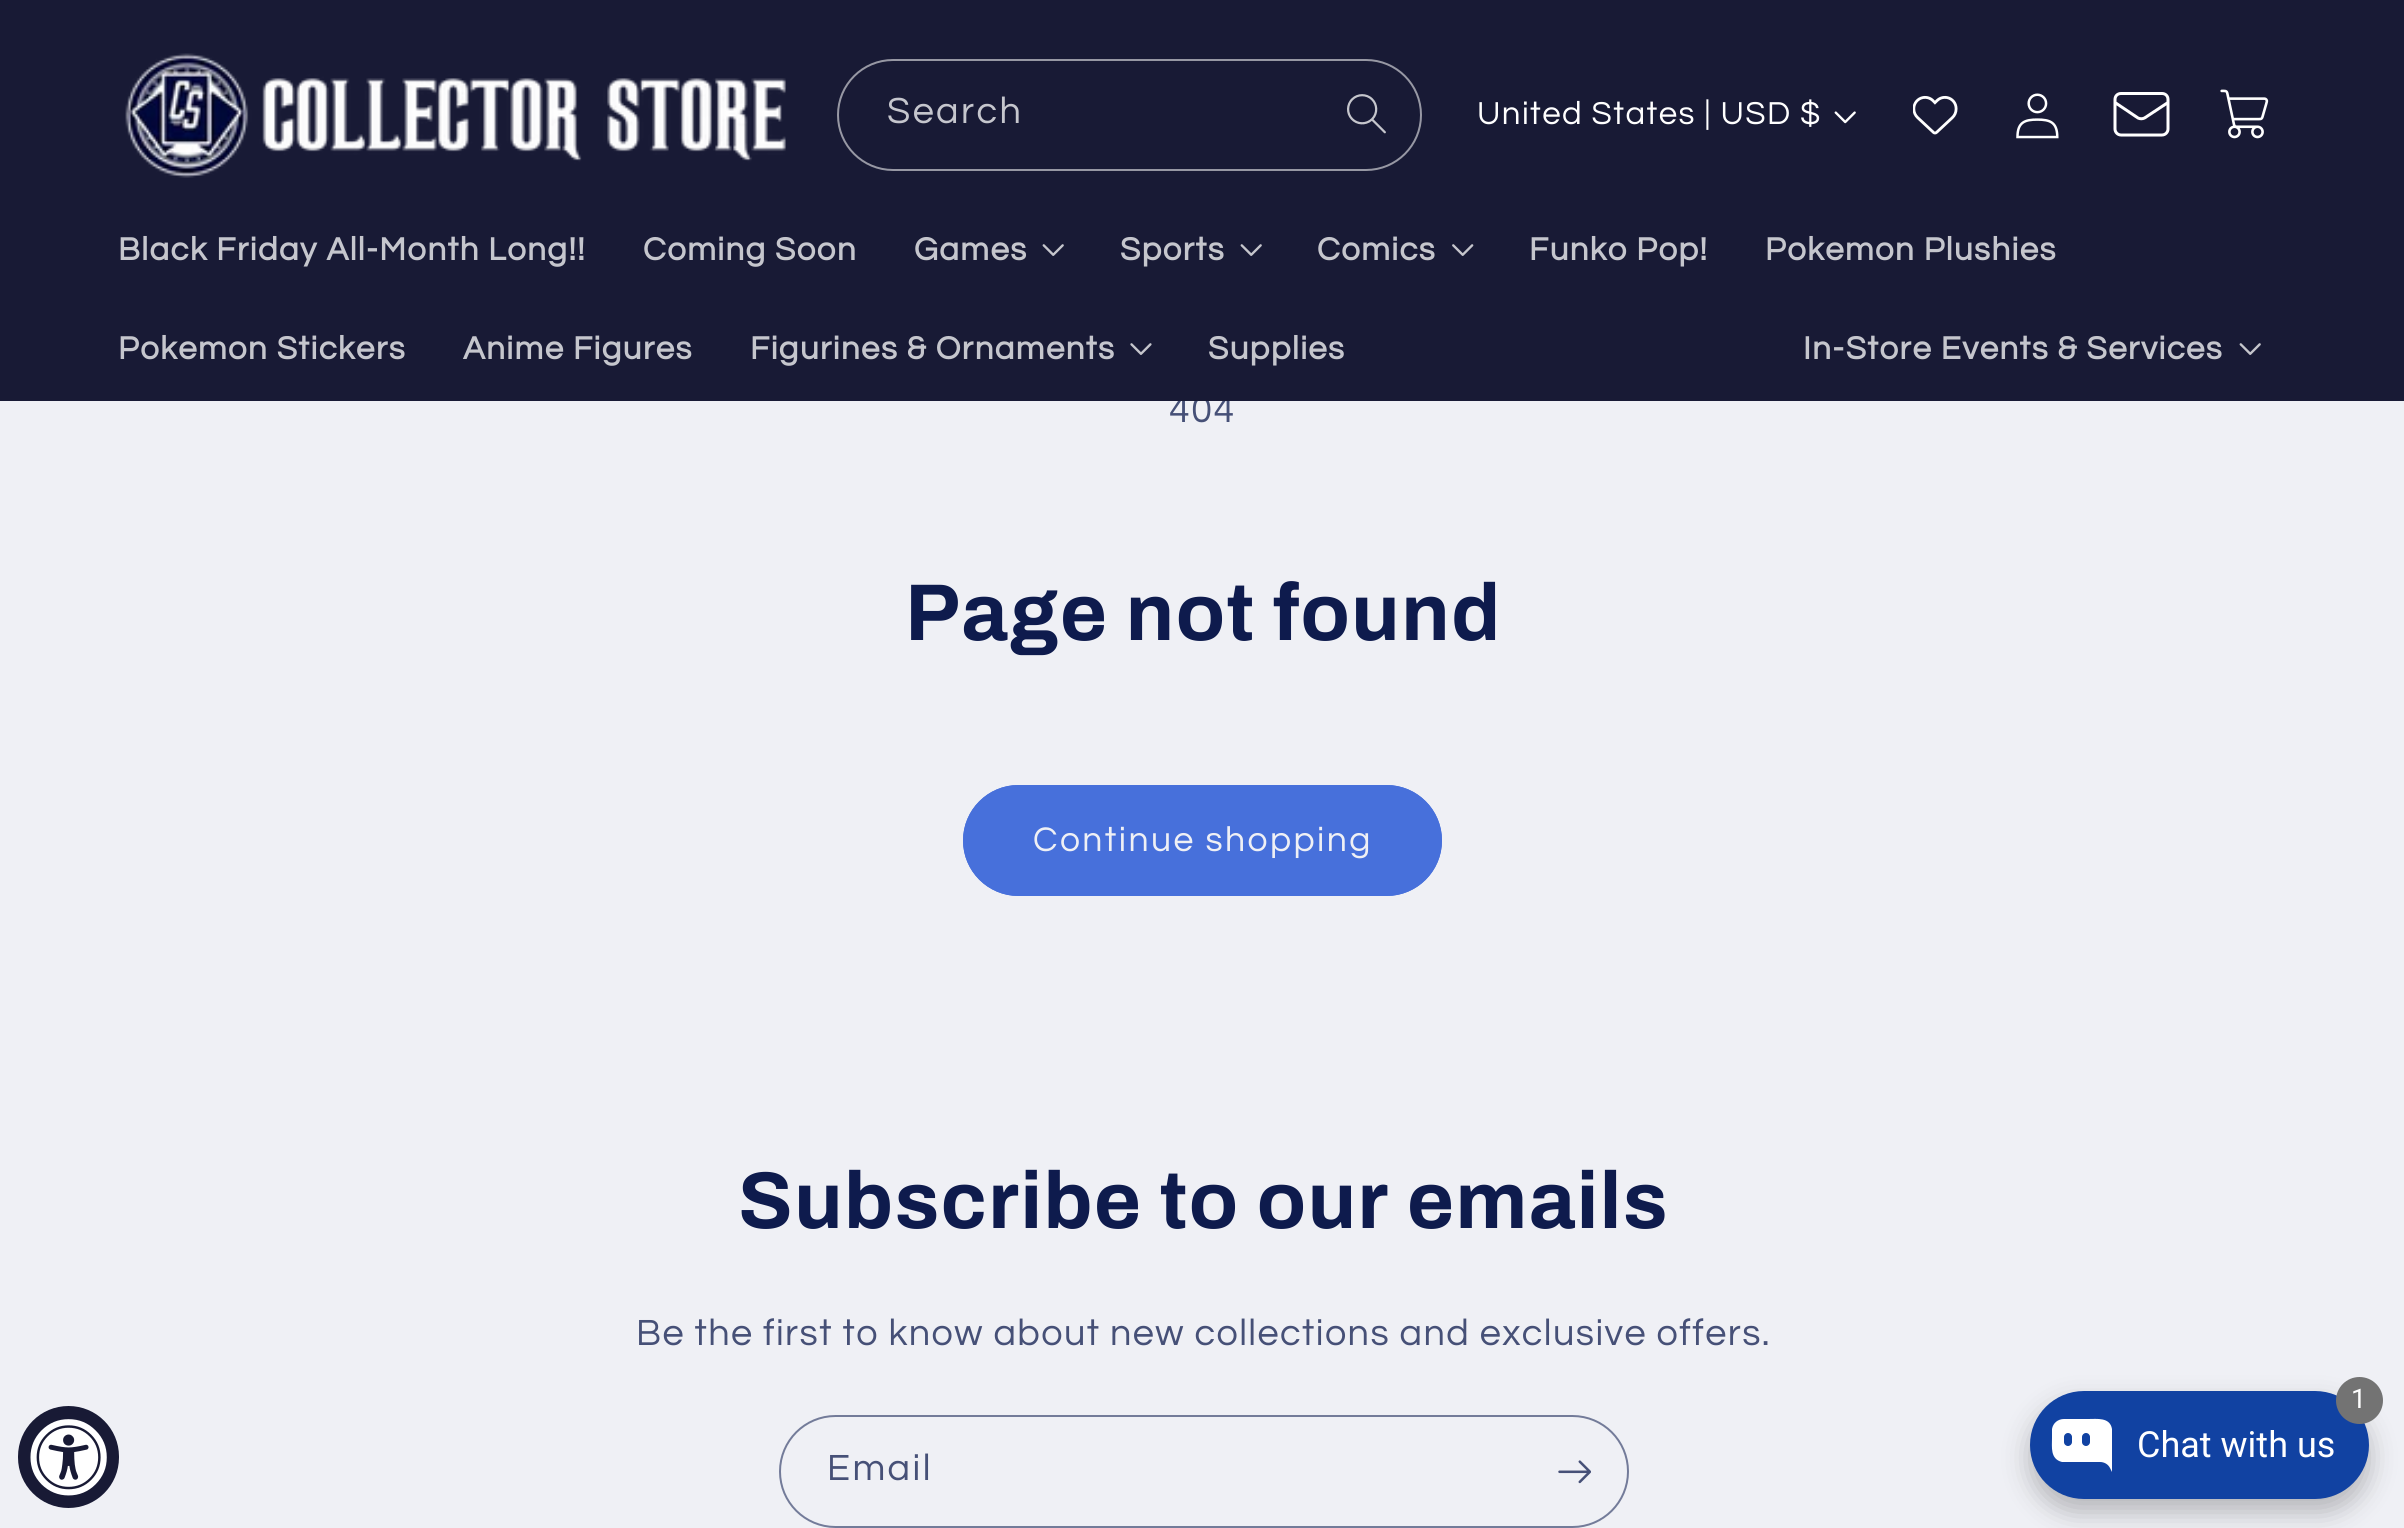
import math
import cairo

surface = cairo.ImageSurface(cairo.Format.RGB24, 2404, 1528)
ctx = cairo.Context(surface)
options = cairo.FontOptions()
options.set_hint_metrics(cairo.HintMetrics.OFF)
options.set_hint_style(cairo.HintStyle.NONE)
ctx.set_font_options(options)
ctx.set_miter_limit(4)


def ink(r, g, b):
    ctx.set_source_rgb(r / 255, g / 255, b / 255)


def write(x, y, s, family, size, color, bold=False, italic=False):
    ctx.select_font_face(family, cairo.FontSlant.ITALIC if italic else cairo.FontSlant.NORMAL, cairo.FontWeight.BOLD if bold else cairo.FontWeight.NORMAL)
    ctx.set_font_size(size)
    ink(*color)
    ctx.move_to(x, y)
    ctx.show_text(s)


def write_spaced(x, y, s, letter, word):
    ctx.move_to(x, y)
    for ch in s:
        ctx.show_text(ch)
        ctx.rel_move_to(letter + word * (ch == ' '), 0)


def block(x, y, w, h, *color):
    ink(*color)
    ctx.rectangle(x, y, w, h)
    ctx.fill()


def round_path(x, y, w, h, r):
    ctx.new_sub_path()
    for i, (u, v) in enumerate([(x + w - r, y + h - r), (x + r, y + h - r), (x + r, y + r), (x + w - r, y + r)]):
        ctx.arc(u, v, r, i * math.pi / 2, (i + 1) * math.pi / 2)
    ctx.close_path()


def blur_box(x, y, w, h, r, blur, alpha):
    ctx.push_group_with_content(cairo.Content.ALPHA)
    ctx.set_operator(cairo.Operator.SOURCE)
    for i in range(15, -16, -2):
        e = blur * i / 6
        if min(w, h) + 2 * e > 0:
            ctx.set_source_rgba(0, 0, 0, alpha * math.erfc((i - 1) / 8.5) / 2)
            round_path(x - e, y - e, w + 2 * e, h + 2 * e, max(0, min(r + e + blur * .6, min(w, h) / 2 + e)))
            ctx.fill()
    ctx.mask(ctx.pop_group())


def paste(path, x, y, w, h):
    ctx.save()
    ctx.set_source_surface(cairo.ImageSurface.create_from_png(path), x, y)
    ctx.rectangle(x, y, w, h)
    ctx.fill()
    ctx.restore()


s1 = dict(family="Roboto", size=36, color=(255, 255, 255))

ink(239, 240, 245)
ctx.paint()
ctx.select_font_face("Questrial")
ctx.set_font_size(37.8)
ink(70, 80, 119)
write_spaced(1169, 422, "404", 1.42, 0)
block(0, 0, 2404, 401, 24, 26, 53)
paste("pic1.png", 125, 53, 661, 125)
paste("pic2.png", 1347, 94, 39, 40)
round_path(838, 60, 583, 110, 55)
ink(151, 152, 164)
ctx.stroke()
ink(197, 198, 205)
write_spaced(887, 123, "Search", 2.4, 0)
ctx.set_font_size(33)
ink(255, 255, 255)
write_spaced(1477, 124, "United States | USD $", 1.42, 0)
paste("pic3.png", 1834, 111, 22, 13)
paste("pic4.png", 1913, 95, 45, 40)
paste("pic5.png", 2016, 93, 43, 46)
ctx.new_path()
ctx.move_to(2115, 102.5)
ctx.line_to(2138, 118)
ctx.curve_to(2140, 119, 2142.5, 119, 2144.5, 118)
ctx.line_to(2168, 102.5)
ctx.move_to(2121, 135)
ctx.line_to(2162, 135)
ctx.curve_to(2165.5, 135, 2168, 132, 2168, 129)
ctx.line_to(2168, 99.5)
ctx.curve_to(2168, 96, 2165.5, 93.5, 2162, 93.5)
ctx.line_to(2121, 93.5)
ctx.curve_to(2117.5, 93.5, 2115, 96, 2115, 99.5)
ctx.line_to(2115, 129)
ctx.curve_to(2115, 132, 2117.5, 135, 2121, 135)
ctx.close_path()
ctx.set_line_width(3)
ctx.set_line_cap(cairo.LineCap.ROUND)
ctx.set_line_join(cairo.LineJoin.ROUND)
ctx.stroke()
paste("pic6.png", 2220, 89, 49, 50)
ctx.select_font_face("Questrial", cairo.FontSlant.NORMAL, cairo.FontWeight.BOLD)
ink(197, 198, 205)
write_spaced(118, 260, "Black Friday All-Month Long!!", 1.42, 0)
write_spaced(643, 260, "Coming Soon", 1.42, 0)
write_spaced(914, 260, "Games", 1.42, 0)
paste("pic7.png", 1042, 244, 22, 12)
write_spaced(1120, 260, "Sports", 1.42, 0)
paste("pic7.png", 1240, 244, 22, 12)
write_spaced(1317, 260, "Comics", 1.42, 0)
paste("pic8.png", 1452, 244, 22, 12)
write_spaced(1529, 260, "Funko Pop!", 1.42, 0)
write_spaced(1765, 260, "Pokemon Plushies", 1.42, 0)
write_spaced(118, 359, "Pokemon Stickers", 1.42, 0)
write_spaced(463, 359, "Anime Figures", 1.42, 0)
write_spaced(750, 359, "Figurines & Ornaments", 1.42, 0)
paste("pic9.png", 1130, 343, 22, 12)
write_spaced(1208, 359, "Supplies", 1.42, 0)
write_spaced(1803, 359, "In-Store Events & Services", 1.42, 0)
paste("pic7.png", 2239, 343, 22, 12)
ctx.select_font_face("Archivo", cairo.FontSlant.NORMAL, cairo.FontWeight.BOLD)
ctx.set_font_size(80.5)
ink(14, 27, 77)
write_spaced(905, 640, "Page not found", 1.5, 0)
ink(71, 112, 219)
round_path(963, 785, 479, 111, 55.5)
ctx.fill()
round_path(964, 786, 477, 109, 54.5)
ctx.set_line_width(2)
ctx.set_line_cap(cairo.LineCap.BUTT)
ctx.set_line_join(cairo.LineJoin.MITER)
ctx.stroke()
ctx.select_font_face("Questrial")
ctx.set_font_size(35.5)
ink(239, 240, 245)
write_spaced(1033, 851, "Continue shopping", 2.4, 0)
ink(24, 26, 53)
round_path(18, 1406, 101, 102, 50.5)
ctx.fill()
paste("pic10.png", 30, 1419, 77, 77)
ctx.select_font_face("Archivo", cairo.FontSlant.NORMAL, cairo.FontWeight.BOLD)
ctx.set_font_size(80.5)
ink(14, 27, 77)
write_spaced(738, 1228, "Subscribe to our emails", 1.5, 0)
ctx.select_font_face("Questrial")
ctx.set_font_size(37.8)
ink(70, 80, 119)
write_spaced(636, 1345, "Be the first to know about new collections and exclusive offers.", 1.42, 0)
round_path(780, 1416, 848, 111, 55.5)
ink(115, 123, 153)
ctx.stroke()
ink(70, 80, 119)
write_spaced(827, 1480, "Email", 2.4, 0)
paste("pic11.png", 1558, 1460, 33, 24)
ink(0, 0, 0)
blur_box(2030, 1404, 339, 108, 54, 13.5, 0.25)
ink(17, 66, 162)
round_path(2030, 1391, 339, 108, 54)
ctx.fill()
ink(115, 115, 115)
ctx.arc(2359.5, 1400.5, 23.5, 0, 2 * math.pi)
ctx.fill()
ctx.select_font_face("Roboto")
ctx.set_font_size(27)
ink(255, 255, 255)
write_spaced(2351, 1408, "1", 1.42, 0)
ctx.set_fill_rule(cairo.FillRule.EVEN_ODD)
ctx.new_path()
ctx.move_to(2064, 1419)
ctx.curve_to(2058, 1419, 2053, 1423, 2052, 1429)
ctx.line_to(2052, 1438)
ctx.curve_to(2052, 1447, 2050, 1459, 2062, 1462)
ctx.line_to(2100, 1462)
ctx.curve_to(2104, 1462, 2108, 1464, 2110, 1468)
ctx.line_to(2112, 1472)
ctx.line_to(2112, 1429)
ctx.curve_to(2110, 1417, 2097, 1419, 2088, 1419)
ctx.close_path()
ctx.fill()
ink(17, 66, 162)
round_path(2064, 1433, 8, 13, 4)
ctx.fill()
round_path(2082, 1433, 8, 13, 4)
ctx.fill()
write(2137, 1457, "Chat with us", **s1)
surface.write_to_png("screenshot.png")
